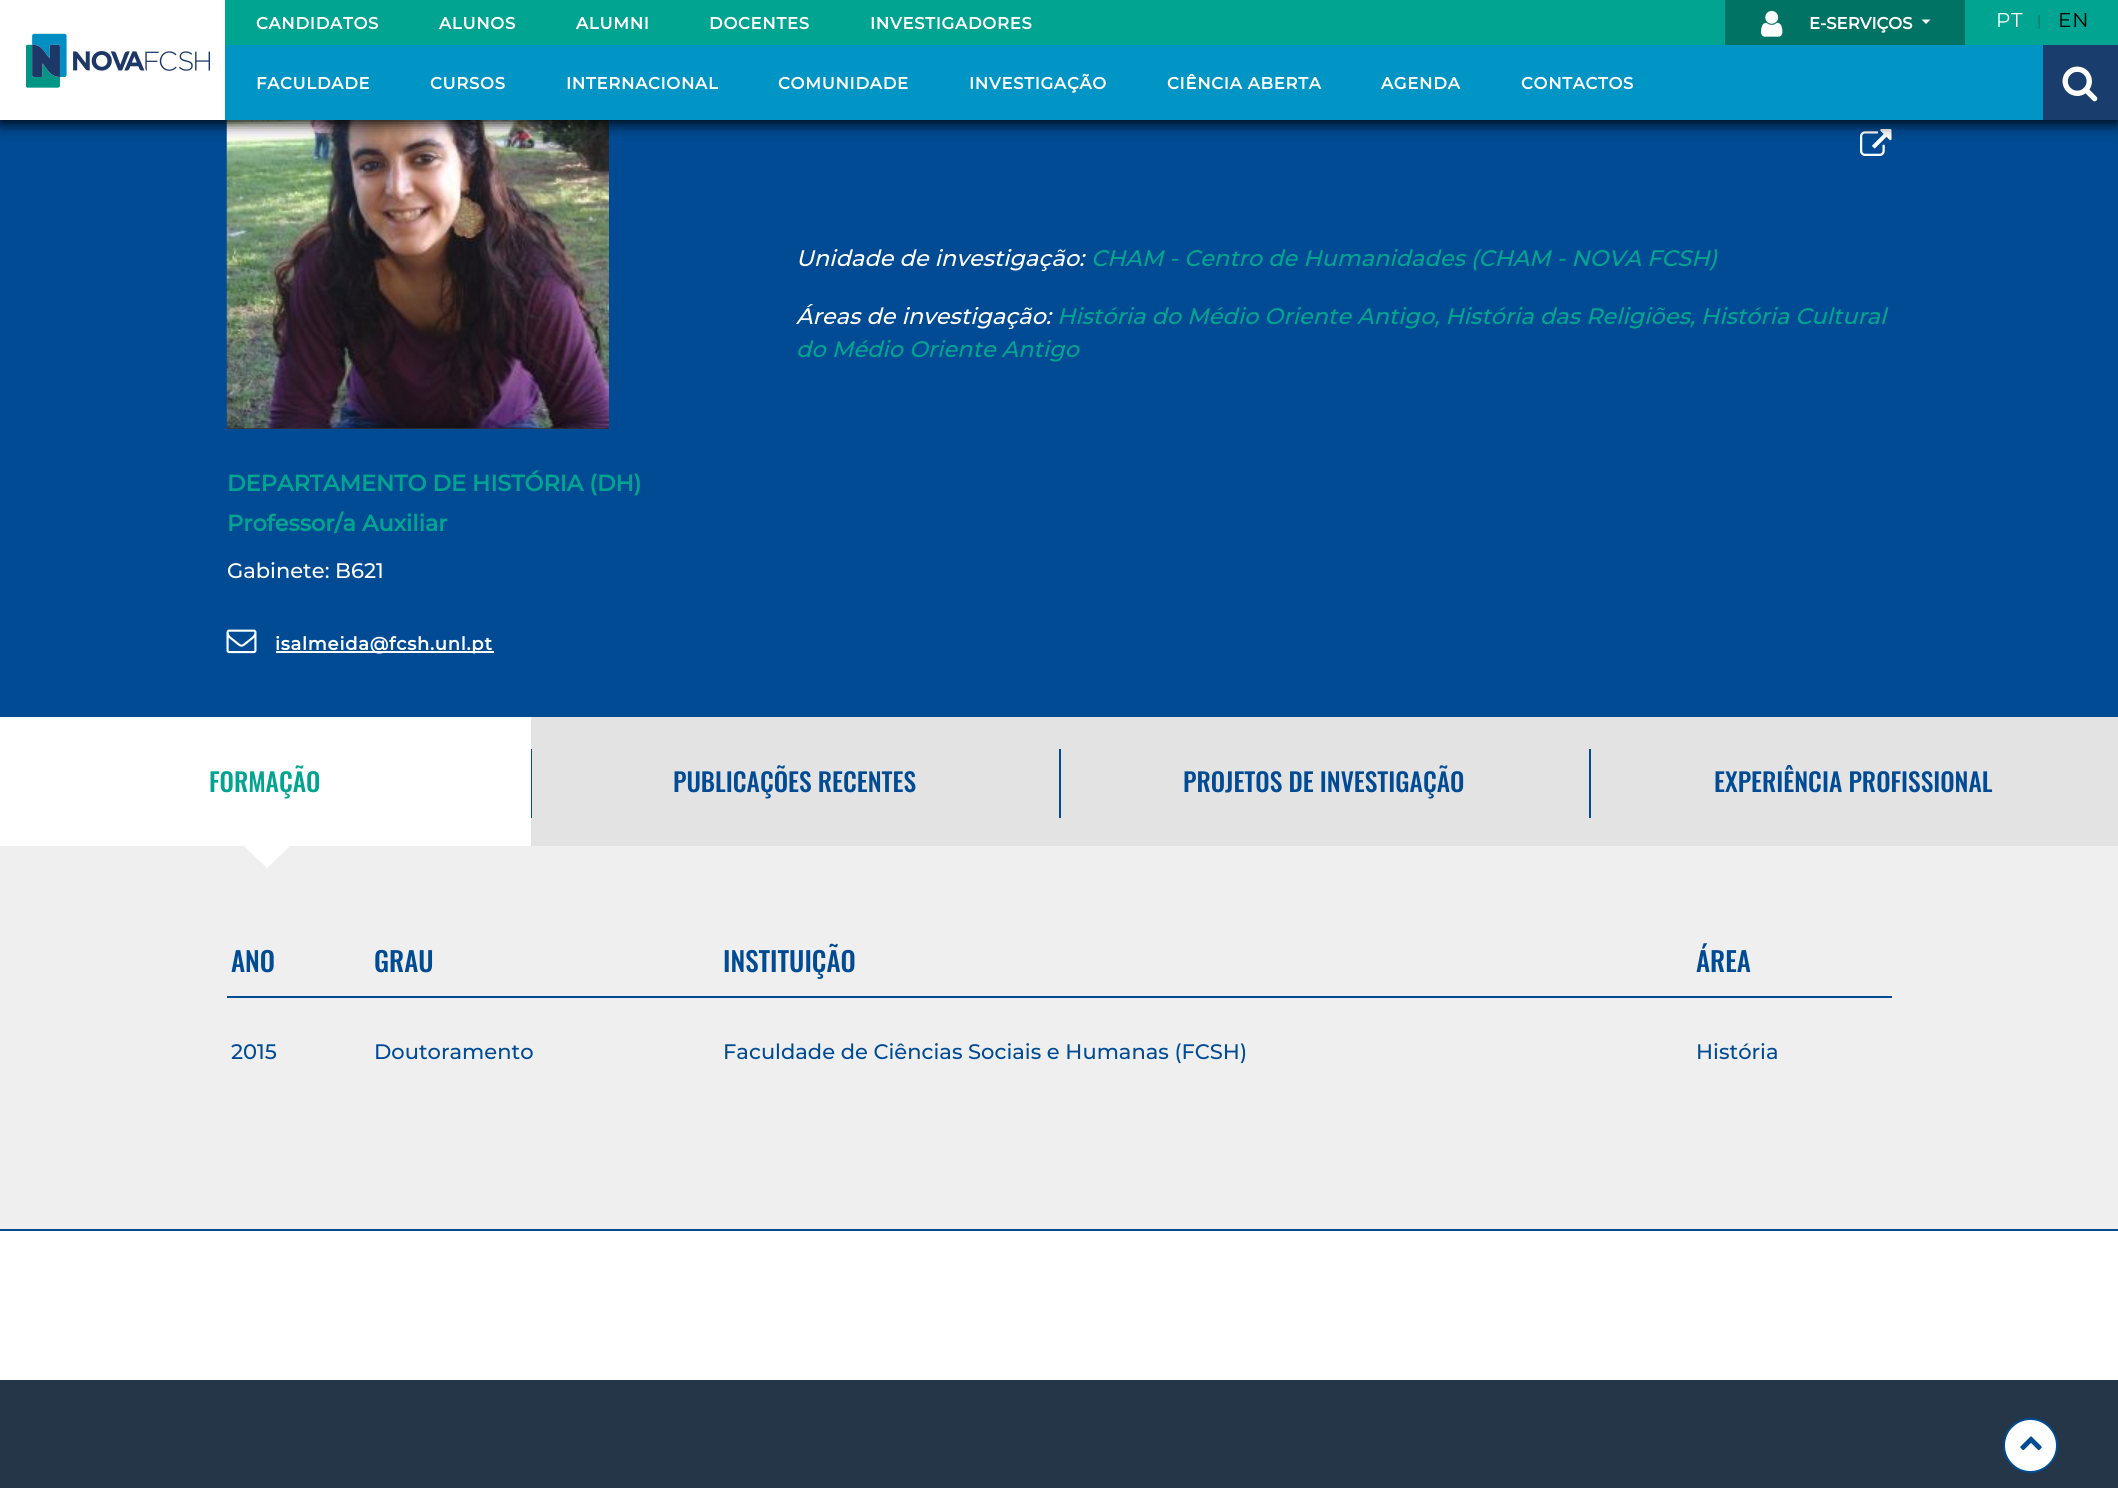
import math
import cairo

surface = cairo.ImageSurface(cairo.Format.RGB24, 2118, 1488)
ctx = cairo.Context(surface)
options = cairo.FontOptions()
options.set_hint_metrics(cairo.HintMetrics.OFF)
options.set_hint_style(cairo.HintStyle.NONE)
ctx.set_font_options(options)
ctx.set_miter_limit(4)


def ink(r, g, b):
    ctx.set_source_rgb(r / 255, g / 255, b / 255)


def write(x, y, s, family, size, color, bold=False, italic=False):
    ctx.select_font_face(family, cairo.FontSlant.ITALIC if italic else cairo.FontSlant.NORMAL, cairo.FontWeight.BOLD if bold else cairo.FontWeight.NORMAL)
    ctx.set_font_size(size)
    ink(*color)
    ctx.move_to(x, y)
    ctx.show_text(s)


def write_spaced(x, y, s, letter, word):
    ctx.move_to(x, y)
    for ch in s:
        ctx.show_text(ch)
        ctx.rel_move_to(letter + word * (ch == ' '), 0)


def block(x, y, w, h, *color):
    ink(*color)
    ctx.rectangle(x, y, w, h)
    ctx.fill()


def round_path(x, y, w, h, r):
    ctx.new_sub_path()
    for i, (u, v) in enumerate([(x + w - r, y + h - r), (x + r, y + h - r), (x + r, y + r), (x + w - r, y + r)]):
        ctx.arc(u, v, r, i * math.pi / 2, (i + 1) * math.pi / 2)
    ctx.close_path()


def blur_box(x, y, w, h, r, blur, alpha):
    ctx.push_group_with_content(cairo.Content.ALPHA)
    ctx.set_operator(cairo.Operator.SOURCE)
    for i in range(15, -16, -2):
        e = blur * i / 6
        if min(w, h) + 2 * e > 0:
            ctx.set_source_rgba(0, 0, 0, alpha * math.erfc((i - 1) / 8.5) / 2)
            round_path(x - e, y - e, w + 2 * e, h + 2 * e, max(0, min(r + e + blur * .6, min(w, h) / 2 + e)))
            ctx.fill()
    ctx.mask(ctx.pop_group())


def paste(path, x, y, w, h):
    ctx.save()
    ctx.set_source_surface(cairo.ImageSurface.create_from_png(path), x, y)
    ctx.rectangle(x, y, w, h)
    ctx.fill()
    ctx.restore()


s1 = dict(family="Montserrat", size=16.5, color=(255, 255, 255), bold=True)
s2 = dict(family="Montserrat Medium", size=22.5, color=(255, 255, 255), italic=True)
s3 = dict(family="Montserrat Medium", size=22.5, color=(0, 164, 144), italic=True)
s4 = dict(family="Montserrat", size=22.5, color=(0, 164, 144), bold=True)
s5 = dict(family="Montserrat Medium", size=21, color=(255, 255, 255))
s6 = dict(family="Oswald Medium", size=25.5, color=(0, 164, 144))
s7 = dict(family="Oswald Medium", size=25.5, color=(0, 75, 147))
s8 = dict(family="Oswald Medium", size=27, color=(0, 75, 147))
s9 = dict(family="Montserrat Medium", size=21, color=(0, 75, 147))

ink(255, 255, 255)
ctx.paint()
block(0, 120, 2118, 597, 0, 75, 147)
paste("pic4.png", 1860, 129, 32, 27)
block(227, 428, 382, 1, 51, 51, 51)
paste("pic5.png", 226, 120, 383, 309)
ink(0, 0, 0)
blur_box(0, 3, 2118, 120, 0, 7.5, 1)
block(0, 0, 225, 120, 255, 255, 255)
paste("pic1.png", 26, 33, 184, 55)
block(225, 0, 1893, 45, 0, 164, 144)
ctx.select_font_face("Montserrat", cairo.FontSlant.NORMAL, cairo.FontWeight.BOLD)
ctx.set_font_size(16.5)
ink(255, 255, 255)
write_spaced(256, 29, "CANDIDATOS", 0.75, 0)
write_spaced(439, 29, "ALUNOS", 0.75, 0)
write_spaced(576, 29, "ALUMNI", 0.75, 0)
write_spaced(709, 29, "DOCENTES", 0.75, 0)
write_spaced(870, 29, "INVESTIGADORES", 0.75, 0)
block(1725, 0, 240, 45, 0, 115, 101)
paste("pic2.png", 1761, 10, 22, 27)
write(1809, 29, "E-SERVIÇOS", **s1)
ctx.new_path()
ctx.move_to(1921.5, 19.5)
ctx.line_to(1930.5, 19.5)
ctx.line_to(1926, 24)
ctx.close_path()
ctx.fill()
ctx.select_font_face("Montserrat")
ctx.set_font_size(20)
write_spaced(1996, 27, "PT", 0.75, 0)
ctx.set_font_size(15)
ink(0, 115, 101)
write_spaced(2037, 26, "|", 0.75, 0)
ctx.set_font_size(20)
ink(0, 0, 0)
write_spaced(2058, 27, "EN", 0.75, 0)
block(225, 45, 1818, 75, 0, 149, 197)
ctx.select_font_face("Montserrat", cairo.FontSlant.NORMAL, cairo.FontWeight.BOLD)
ctx.set_font_size(16.5)
ink(255, 255, 255)
write_spaced(256, 89, "FACULDADE", 0.75, 0)
write_spaced(430, 89, "CURSOS", 0.75, 0)
write_spaced(566, 89, "INTERNACIONAL", 0.75, 0)
write_spaced(778, 89, "COMUNIDADE", 0.75, 0)
write_spaced(969, 89, "INVESTIGAÇÃO", 0.75, 0)
write_spaced(1167, 89, "CIÊNCIA ABERTA", 0.75, 0)
write_spaced(1381, 89, "AGENDA", 0.75, 0)
write_spaced(1521, 89, "CONTACTOS", 0.75, 0)
block(2043, 45, 75, 75, 25, 61, 109)
paste("pic3.png", 2062, 66, 36, 36)
write(796, 266, "Unidade de investigação:", **s2)
write(1091, 266, "CHAM - Centro de Humanidades (CHAM - NOVA FCSH)", **s3)
write(796, 324, "Áreas de investigação:", **s2)
write(1057, 324, "História do Médio Oriente Antigo, História das Religiões, História Cultural", **s3)
write(796, 357, "do Médio Oriente Antigo", **s3)
write(227, 491, "DEPARTAMENTO DE HISTÓRIA (DH)", **s4)
write(227, 531, "Professor/a Auxiliar", **s4)
write(227, 578, "Gabinete: B621", **s5)
paste("pic6.png", 226, 629, 31, 25)
block(276, 651, 218, 2, 255, 255, 255)
ctx.select_font_face("Montserrat", cairo.FontSlant.NORMAL, cairo.FontWeight.BOLD)
ctx.set_font_size(18)
write_spaced(275, 650, "isalmeida@fcsh.unl.pt", 0.75, 0)
write(209, 792, "FORMAÇÃO", **s6)
block(0, 846, 2118, 383, 239, 239, 239)
ink(255, 255, 255)
ctx.new_path()
ctx.move_to(244, 846)
ctx.line_to(290, 846)
ctx.line_to(267, 868)
ctx.close_path()
ctx.fill()
block(531, 717, 1587, 129, 228, 227, 227)
block(531, 749, 1, 69, 0, 75, 147)
write(673, 792, "PUBLICAÇÕES RECENTES", **s7)
block(1059, 749, 2, 69, 0, 75, 147)
write(1183, 792, "PROJETOS DE INVESTIGAÇÃO", **s7)
block(1589, 749, 2, 69, 0, 75, 147)
write(1714, 792, "EXPERIÊNCIA PROFISSIONAL", **s7)
block(0, 1229, 2118, 2, 0, 75, 147)
write(231, 972, "ANO", **s8)
write(374, 972, "GRAU", **s8)
write(723, 972, "INSTITUIÇÃO", **s8)
block(227, 996, 1665, 2, 0, 75, 147)
write(1696, 972, "ÁREA", **s8)
write(231, 1059, "2015", **s9)
write(374, 1059, "Doutoramento", **s9)
write(723, 1059, "Faculdade de Ciências Sociais e Humanas (FCSH)", **s9)
write(1696, 1059, "História", **s9)
block(0, 1380, 2118, 108, 37, 54, 72)
ink(255, 255, 255)
ctx.new_path()
ctx.arc(2030.5, 1445.5, 26.5, 0, 2 * math.pi)
ctx.fill_preserve()
ink(0, 75, 147)
ctx.stroke()
paste("pic7.png", 2020, 1436, 22, 15)
surface.write_to_png("screenshot.png")
